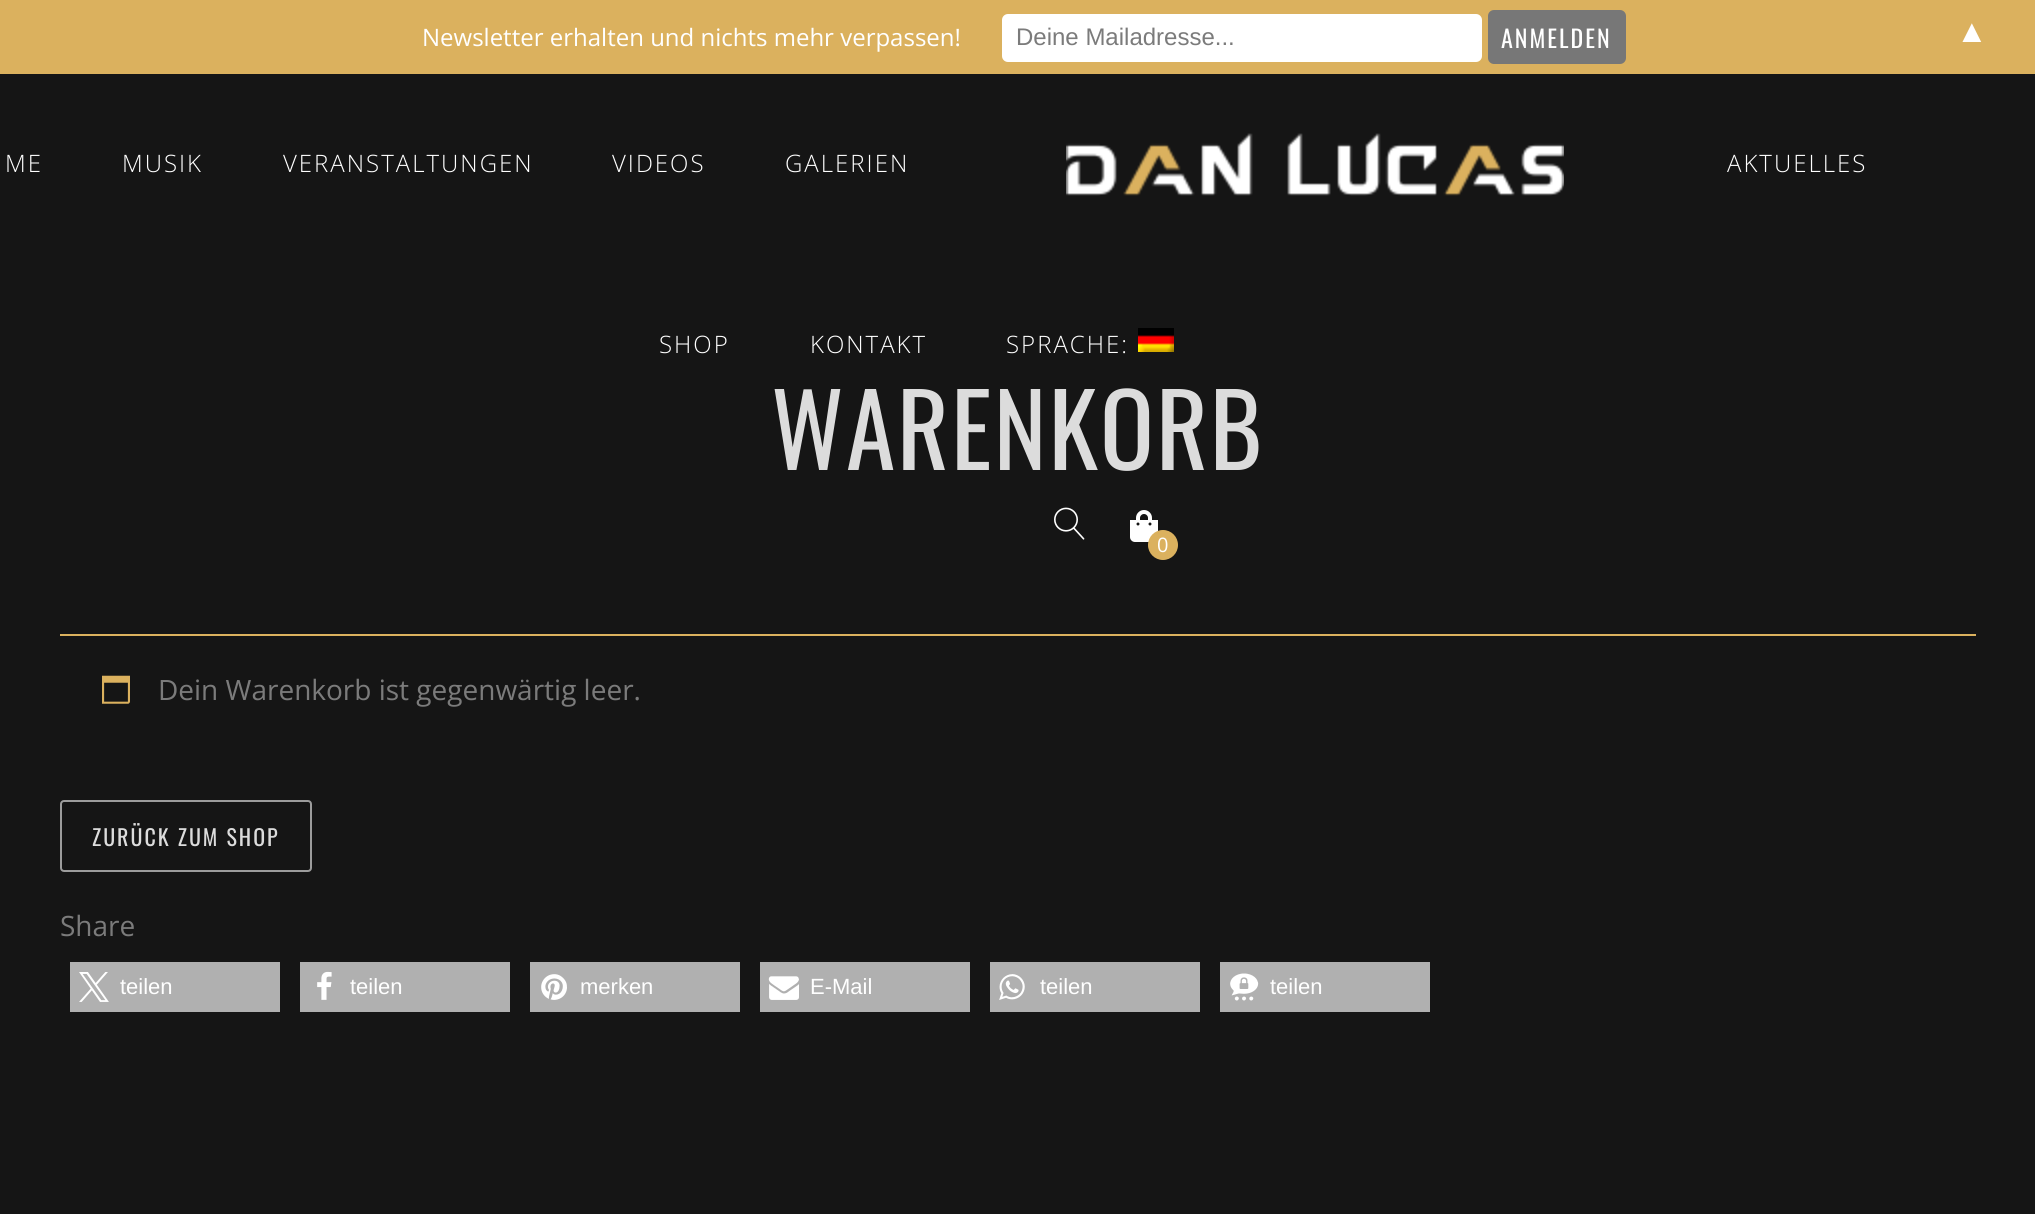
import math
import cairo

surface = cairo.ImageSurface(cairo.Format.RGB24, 2035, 1214)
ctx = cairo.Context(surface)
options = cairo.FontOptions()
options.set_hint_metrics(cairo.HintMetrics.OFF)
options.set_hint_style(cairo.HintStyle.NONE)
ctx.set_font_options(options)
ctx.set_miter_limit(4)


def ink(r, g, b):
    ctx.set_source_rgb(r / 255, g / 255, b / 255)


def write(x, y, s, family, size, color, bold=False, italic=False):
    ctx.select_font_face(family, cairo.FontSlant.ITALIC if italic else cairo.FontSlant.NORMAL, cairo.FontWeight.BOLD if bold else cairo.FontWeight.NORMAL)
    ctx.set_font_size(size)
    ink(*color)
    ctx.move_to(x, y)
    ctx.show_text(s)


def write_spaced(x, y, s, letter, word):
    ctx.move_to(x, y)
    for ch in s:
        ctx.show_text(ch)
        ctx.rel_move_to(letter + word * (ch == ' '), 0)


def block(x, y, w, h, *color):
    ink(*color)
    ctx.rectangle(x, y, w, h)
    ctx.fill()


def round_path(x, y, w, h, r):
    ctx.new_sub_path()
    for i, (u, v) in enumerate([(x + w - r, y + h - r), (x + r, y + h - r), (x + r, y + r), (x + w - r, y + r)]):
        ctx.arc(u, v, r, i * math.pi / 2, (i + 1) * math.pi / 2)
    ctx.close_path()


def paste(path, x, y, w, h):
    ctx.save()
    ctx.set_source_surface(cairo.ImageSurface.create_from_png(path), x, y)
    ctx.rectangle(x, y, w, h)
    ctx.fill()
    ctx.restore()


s1 = dict(family="Open Sans", size=24, color=(255, 255, 255))
s2 = dict(family="Liberation Sans", size=24, color=(123, 123, 123))
s3 = dict(family="Liberation Sans", size=32, color=(255, 255, 255))
s4 = dict(family="Open Sans", size=20, color=(255, 255, 255))
s5 = dict(family="Open Sans", size=28, color=(123, 123, 123))
s6 = dict(family="Liberation Sans", size=22, color=(255, 255, 255))

ink(21, 21, 21)
ctx.paint()
block(0, 0, 2035, 74, 219, 177, 94)
write(422, 46, "Newsletter erhalten und nichts mehr verpassen!", **s1)
round_path(1003, 15, 478, 46, 5)
ctx.fill_preserve()
ctx.stroke()
write(1016, 45, "Deine Mailadresse...", **s2)
ink(119, 119, 119)
round_path(1489, 11, 136, 52, 5)
ctx.fill_preserve()
ctx.stroke()
ctx.select_font_face("Oswald")
ink(255, 255, 255)
write_spaced(1501, 48, "ANMELDEN", 2, 0)
write(1956, 42, "▲", **s3)
ctx.select_font_face("Open Sans Light")
ctx.set_font_size(24)
write_spaced(5, 172, "ME", 2, 0)
write_spaced(122, 172, "MUSIK", 2, 0)
write_spaced(283, 172, "VERANSTALTUNGEN", 2, 0)
write_spaced(612, 172, "VIDEOS", 2, 0)
write_spaced(785, 172, "GALERIEN", 2, 0)
paste("pic1.png", 1066, 133, 498, 63)
write_spaced(1727, 172, "AKTUELLES", 2, 0)
write_spaced(659, 353, "SHOP", 2, 0)
write_spaced(810, 353, "KONTAKT", 2, 0)
write_spaced(1006, 353, "SPRACHE:", 2, 0)
paste("pic2.png", 1138, 328, 36, 24)
paste("pic3.png", 1054, 507, 31, 33)
paste("pic4.png", 1130, 510, 28, 32)
ink(219, 177, 94)
ctx.arc(1163, 545, 15, 0, 2 * math.pi)
ctx.fill()
write(1157, 552, "0", **s4)
ctx.select_font_face("Oswald")
ctx.set_font_size(100)
ink(220, 220, 220)
write_spaced(771, 470, "WARENKORB", 2, 0)
block(60, 634, 1916, 2, 219, 177, 94)
paste("pic5.png", 102, 675, 28, 29)
write(158, 700, "Dein Warenkorb ist gegenwärtig leer.", **s5)
round_path(61, 801, 250, 70, 3)
ink(156, 156, 156)
ctx.stroke()
ctx.select_font_face("Oswald")
ctx.set_font_size(22)
ink(220, 220, 220)
write_spaced(92, 846, "ZURÜCK ZUM SHOP", 2, 0)
write(60, 936, "Share", **s5)
block(70, 962, 210, 50, 176, 176, 176)
paste("pic6.png", 79, 972, 30, 30)
write(120, 994, "teilen", **s6)
block(300, 962, 210, 50, 176, 176, 176)
paste("pic7.png", 317, 971, 15, 29)
write(350, 994, "teilen", **s6)
block(530, 962, 210, 50, 176, 176, 176)
paste("pic8.png", 541, 974, 26, 26)
write(580, 994, "merken", **s6)
block(760, 962, 210, 50, 176, 176, 176)
paste("pic9.png", 768, 976, 31, 24)
write(810, 994, "E-Mail", **s6)
block(990, 962, 210, 50, 176, 176, 176)
paste("pic10.png", 999, 974, 26, 26)
write(1040, 994, "teilen", **s6)
block(1220, 962, 210, 50, 176, 176, 176)
paste("pic11.png", 1230, 973, 29, 28)
write(1270, 994, "teilen", **s6)
surface.write_to_png("screenshot.png")
